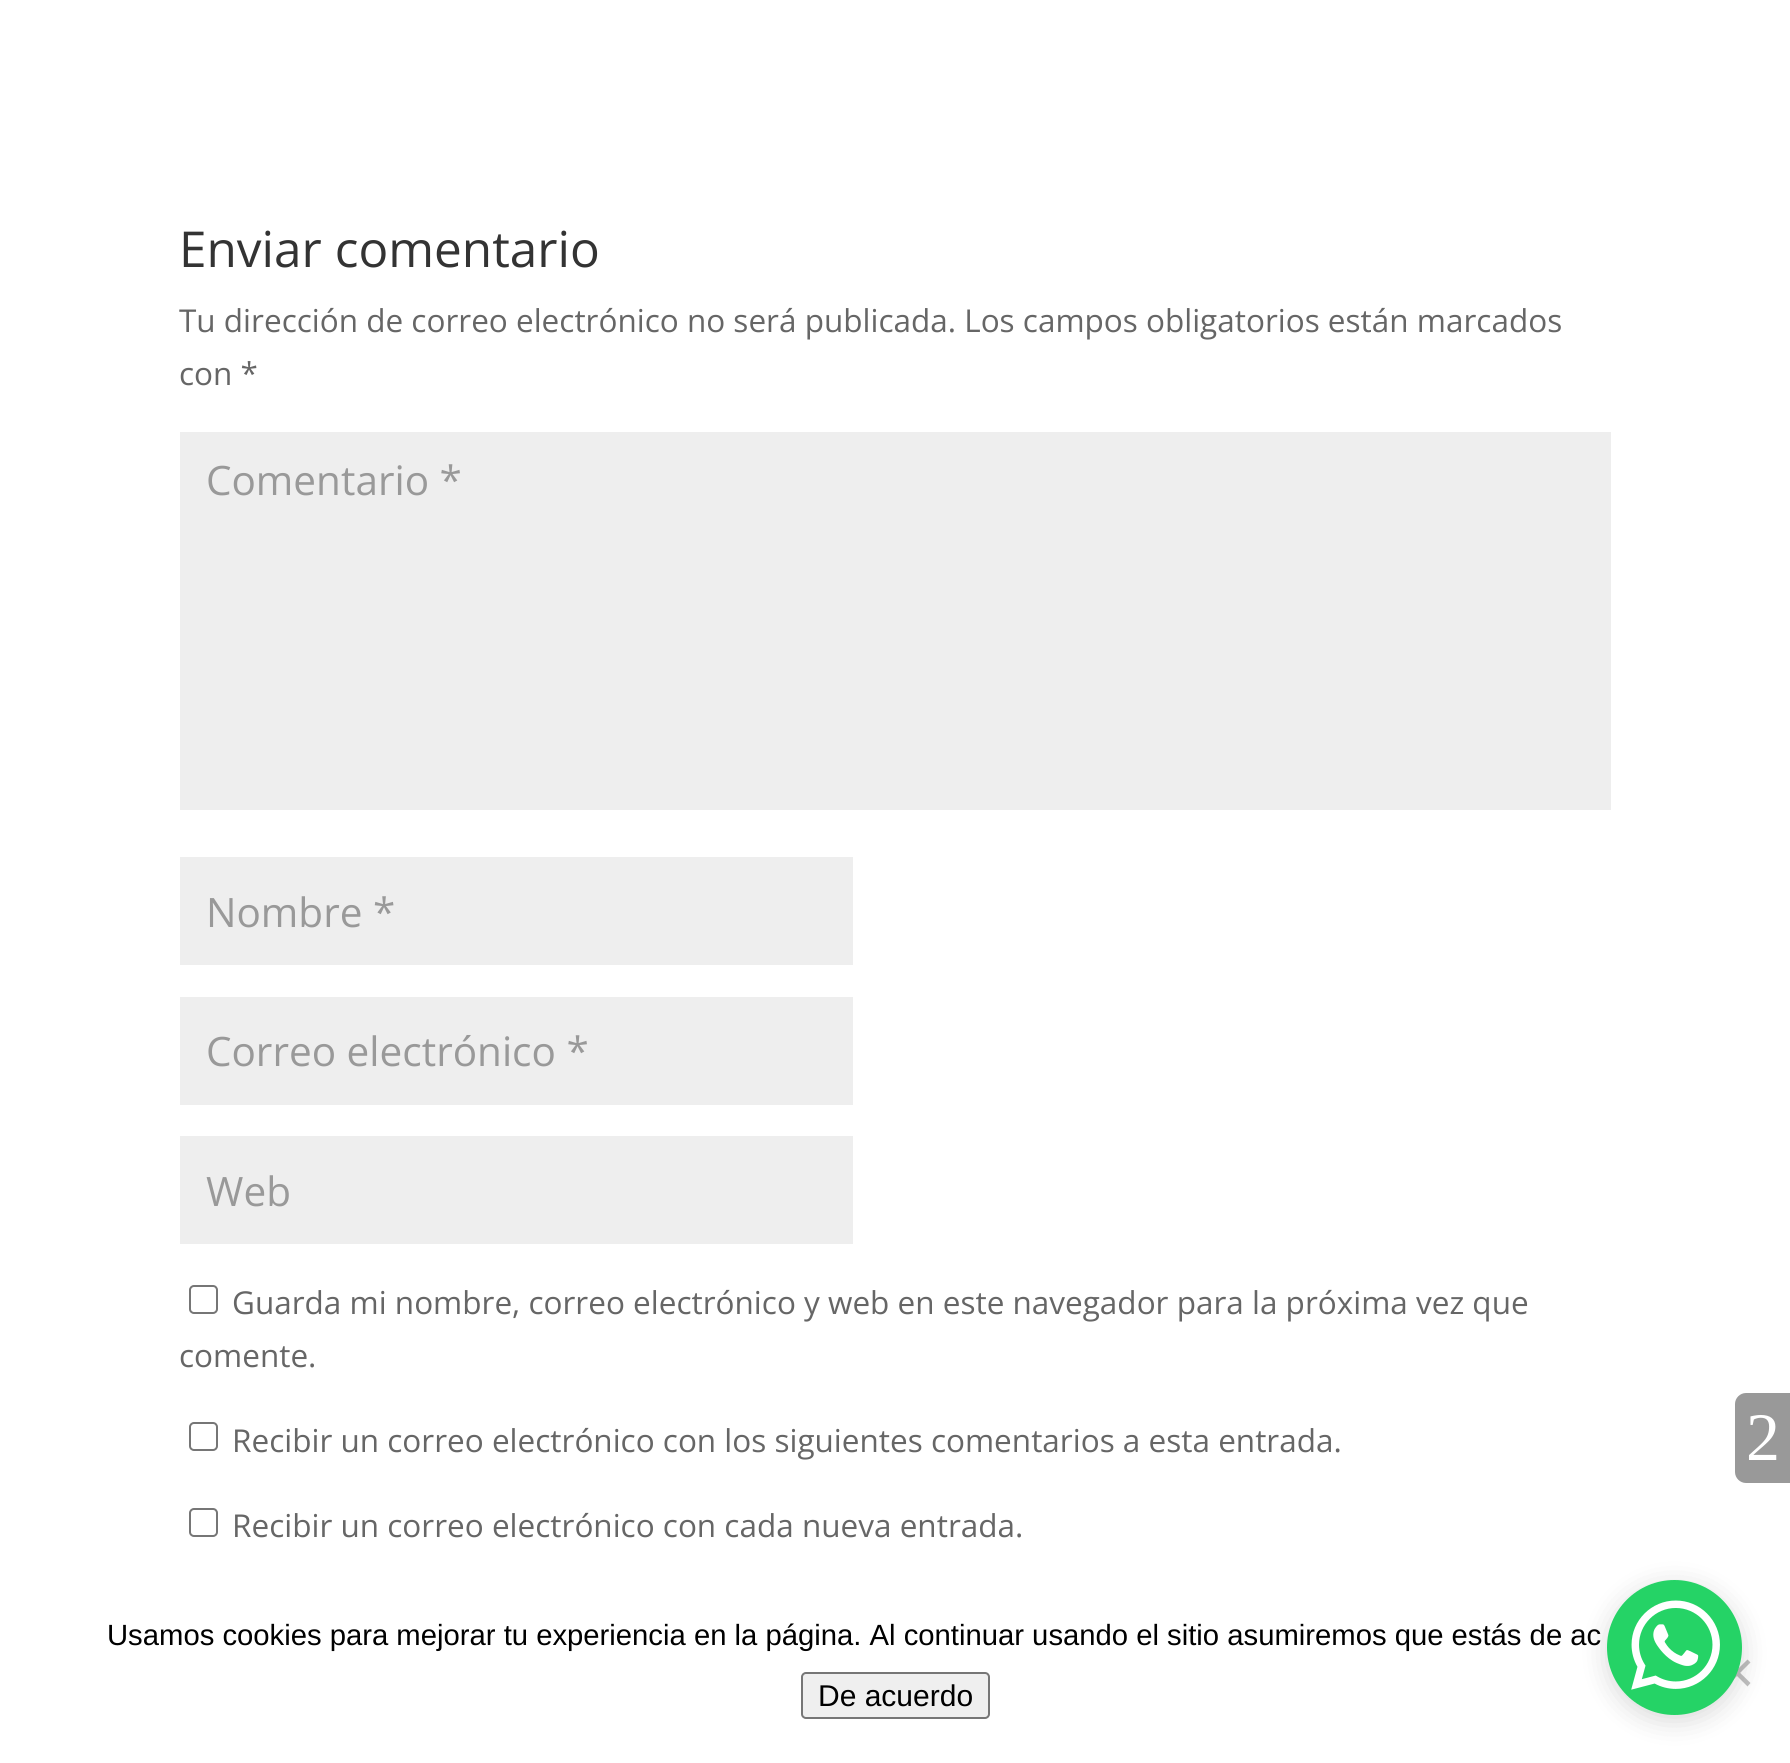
import math
import cairo

surface = cairo.ImageSurface(cairo.Format.RGB24, 1790, 1763)
ctx = cairo.Context(surface)
options = cairo.FontOptions()
options.set_hint_metrics(cairo.HintMetrics.OFF)
options.set_hint_style(cairo.HintStyle.NONE)
ctx.set_font_options(options)
ctx.set_miter_limit(4)


def ink(r, g, b):
    ctx.set_source_rgb(r / 255, g / 255, b / 255)


def write(x, y, s, family, size, color, bold=False, italic=False):
    ctx.select_font_face(family, cairo.FontSlant.ITALIC if italic else cairo.FontSlant.NORMAL, cairo.FontWeight.BOLD if bold else cairo.FontWeight.NORMAL)
    ctx.set_font_size(size)
    ink(*color)
    ctx.move_to(x, y)
    ctx.show_text(s)


def block(x, y, w, h, *color):
    ink(*color)
    ctx.rectangle(x, y, w, h)
    ctx.fill()


def round_path(x, y, w, h, r):
    ctx.new_sub_path()
    for i, (u, v) in enumerate([(x + w - r, y + h - r), (x + r, y + h - r), (x + r, y + r), (x + w - r, y + r)]):
        ctx.arc(u, v, r, i * math.pi / 2, (i + 1) * math.pi / 2)
    ctx.close_path()


def blur_box(x, y, w, h, r, blur, alpha):
    ctx.push_group_with_content(cairo.Content.ALPHA)
    ctx.set_operator(cairo.Operator.SOURCE)
    for i in range(15, -16, -2):
        e = blur * i / 6
        if min(w, h) + 2 * e > 0:
            ctx.set_source_rgba(0, 0, 0, alpha * math.erfc((i - 1) / 8.5) / 2)
            round_path(x - e, y - e, w + 2 * e, h + 2 * e, max(0, min(r + e + blur * .6, min(w, h) / 2 + e)))
            ctx.fill()
    ctx.mask(ctx.pop_group())


def paste(path, x, y, w, h):
    ctx.save()
    ctx.set_source_surface(cairo.ImageSurface.create_from_png(path), x, y)
    ctx.rectangle(x, y, w, h)
    ctx.fill()
    ctx.restore()


s1 = dict(family="Open Sans", size=49.5, color=(51, 51, 51))
s2 = dict(family="Open Sans", size=31.5, color=(102, 102, 102))
s3 = dict(family="Open Sans", size=40.5, color=(153, 153, 153))
s4 = dict(family="Liberation Serif", size=68, color=(255, 255, 255))
s5 = dict(family="Liberation Sans", size=29.25, color=(0, 0, 0))
s6 = dict(family="Liberation Sans", size=30, color=(0, 0, 0))

ink(255, 255, 255)
ctx.paint()
write(179, 267, "Enviar comentario", **s1)
write(179, 332, "Tu dirección de correo electrónico no será publicada. Los campos obligatorios están marcados", **s2)
write(179, 385, "con *", **s2)
block(180, 432, 1431, 378, 238, 238, 238)
write(206, 495, "Comentario *", **s3)
block(180, 857, 673, 108, 238, 238, 238)
write(206, 927, "Nombre *", **s3)
block(180, 997, 673, 108, 238, 238, 238)
write(206, 1066, "Correo electrónico *", **s3)
block(180, 1136, 673, 108, 238, 238, 238)
write(206, 1206, "Web", **s3)
round_path(190, 1286, 27, 27, 4)
ink(118, 118, 118)
ctx.stroke()
write(232, 1314, "Guarda mi nombre, correo electrónico y web en este navegador para la próxima vez que", **s2)
write(179, 1367, "comente.", **s2)
round_path(190, 1423, 27, 27, 4)
ink(118, 118, 118)
ctx.stroke()
write(232, 1452, "Recibir un correo electrónico con los siguientes comentarios a esta entrada.", **s2)
round_path(190, 1509, 27, 27, 4)
ink(118, 118, 118)
ctx.stroke()
write(232, 1537, "Recibir un correo electrónico con cada nueva entrada.", **s2)
ink(153, 153, 153)
ctx.new_path()
ctx.move_to(1746, 1393)
ctx.line_to(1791, 1393)
ctx.line_to(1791, 1483)
ctx.line_to(1746, 1483)
ctx.curve_to(1740, 1483, 1735, 1478, 1735, 1472)
ctx.line_to(1735, 1404)
ctx.curve_to(1735, 1398, 1740, 1393, 1746, 1393)
ctx.close_path()
ctx.fill()
write(1746, 1460, "2", **s4)
write(107, 1645, "Usamos cookies para mejorar tu experiencia en la página. Al continuar usando el sitio asumiremos que estás de ac", **s5)
ink(192, 192, 192)
ctx.new_path()
ctx.move_to(1747.5, 1659.5)
ctx.line_to(1750.5, 1662.5)
ctx.line_to(1726.5, 1686.5)
ctx.line_to(1723.5, 1683)
ctx.close_path()
ctx.fill()
ctx.new_path()
ctx.move_to(1723.5, 1662.5)
ctx.line_to(1726.5, 1659.5)
ctx.line_to(1750.5, 1683)
ctx.line_to(1747.5, 1686.5)
ctx.close_path()
ctx.fill()
ink(239, 239, 239)
round_path(802, 1673, 187, 45, 4)
ctx.fill_preserve()
ink(118, 118, 118)
ctx.stroke()
write(818, 1706, "De acuerdo", **s6)
ink(0, 0, 0)
blur_box(1607, 1586, 135, 135, 67.5, 13.5, 0.15)
ink(37, 211, 102)
ctx.arc(1674.5, 1647.5, 67.5, 0, 2 * math.pi)
ctx.fill()
paste("pic1.png", 1631, 1600, 89, 90)
surface.write_to_png("screenshot.png")
